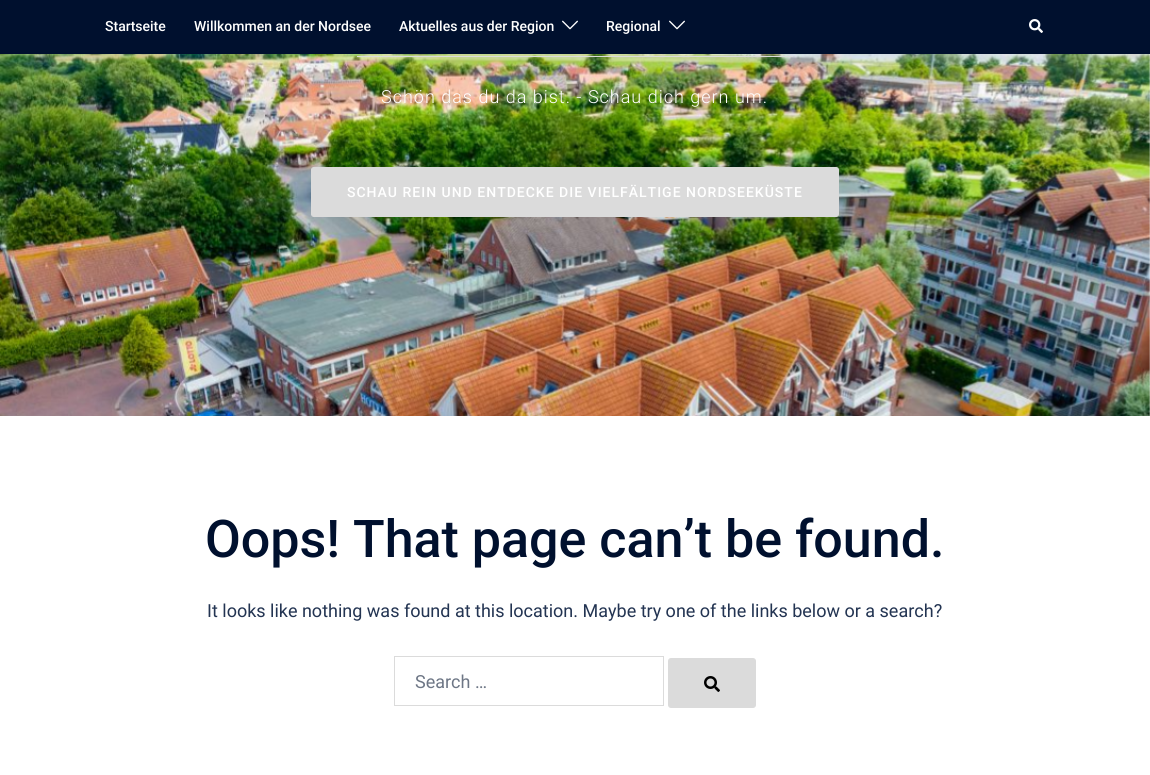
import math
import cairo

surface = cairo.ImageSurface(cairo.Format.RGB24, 1150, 775)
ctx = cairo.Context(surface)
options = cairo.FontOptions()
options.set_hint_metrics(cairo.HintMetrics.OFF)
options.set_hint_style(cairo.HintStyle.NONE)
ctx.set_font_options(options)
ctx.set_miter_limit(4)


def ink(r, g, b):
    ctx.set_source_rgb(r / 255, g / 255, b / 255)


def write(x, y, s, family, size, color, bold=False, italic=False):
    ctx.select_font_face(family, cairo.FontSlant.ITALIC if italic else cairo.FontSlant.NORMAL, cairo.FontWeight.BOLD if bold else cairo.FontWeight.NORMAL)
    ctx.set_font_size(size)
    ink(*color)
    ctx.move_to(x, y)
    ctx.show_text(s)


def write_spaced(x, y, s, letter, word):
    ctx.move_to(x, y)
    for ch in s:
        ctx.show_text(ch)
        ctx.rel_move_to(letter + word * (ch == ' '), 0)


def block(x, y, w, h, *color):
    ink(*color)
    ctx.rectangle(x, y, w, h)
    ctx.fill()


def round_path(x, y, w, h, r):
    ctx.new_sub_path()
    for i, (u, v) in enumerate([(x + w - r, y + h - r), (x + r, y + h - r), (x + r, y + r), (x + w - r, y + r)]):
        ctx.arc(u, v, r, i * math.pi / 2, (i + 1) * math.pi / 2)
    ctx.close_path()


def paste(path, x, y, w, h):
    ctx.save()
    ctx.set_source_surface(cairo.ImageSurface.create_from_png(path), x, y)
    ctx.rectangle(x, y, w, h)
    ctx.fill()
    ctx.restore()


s1 = dict(family="Roboto Medium", size=14, color=(255, 255, 255))
s2 = dict(family="Roboto Medium", size=52, color=(0, 16, 46))
s3 = dict(family="Roboto", size=18, color=(35, 52, 82))
s4 = dict(family="Roboto", size=18, color=(109, 118, 133))

ink(255, 255, 255)
ctx.paint()
block(0, 0, 1150, 54, 0, 16, 46)
write(105, 31, "Startseite", **s1)
write(194, 31, "Willkommen an der Nordsee", **s1)
write(399, 31, "Aktuelles aus der Region", **s1)
paste("pic1.png", 562, 20, 16, 10)
write(606, 31, "Regional", **s1)
paste("pic1.png", 669, 20, 16, 10)
paste("pic2.png", 1029, 19, 14, 14)
paste("pic3.png", 0, 54, 1150, 362)
block(357, 56, 436, 1, 219, 219, 219)
ctx.select_font_face("Roboto Light")
ctx.set_font_size(18)
ink(255, 255, 255)
write_spaced(381, 103, "Schön das du da bist. - Schau dich gern um.", 1, 0)
ink(219, 219, 219)
round_path(311.5, 167.5, 527, 49, 2.5)
ctx.fill_preserve()
ctx.set_line_width(1)
ctx.stroke()
ctx.select_font_face("Roboto Medium")
ctx.set_font_size(14)
ink(255, 255, 255)
write_spaced(347, 197, "SCHAU REIN UND ENTDECKE DIE VIELFÄLTIGE NORDSEEKÜSTE", 1, 0)
write(205, 557, "Oops! That page can’t be found.", **s2)
write(207, 617, "It looks like nothing was found at this location. Maybe try one of the links below or a search?", **s3)
ctx.rectangle(394.5, 656.5, 269, 49)
ink(219, 219, 219)
ctx.stroke()
write(415, 688, "Search …", **s4)
ink(219, 219, 219)
round_path(668.5, 658.5, 87, 49, 2.5)
ctx.fill_preserve()
ctx.stroke()
paste("pic4.png", 704, 676, 16, 16)
surface.write_to_png("screenshot.png")
